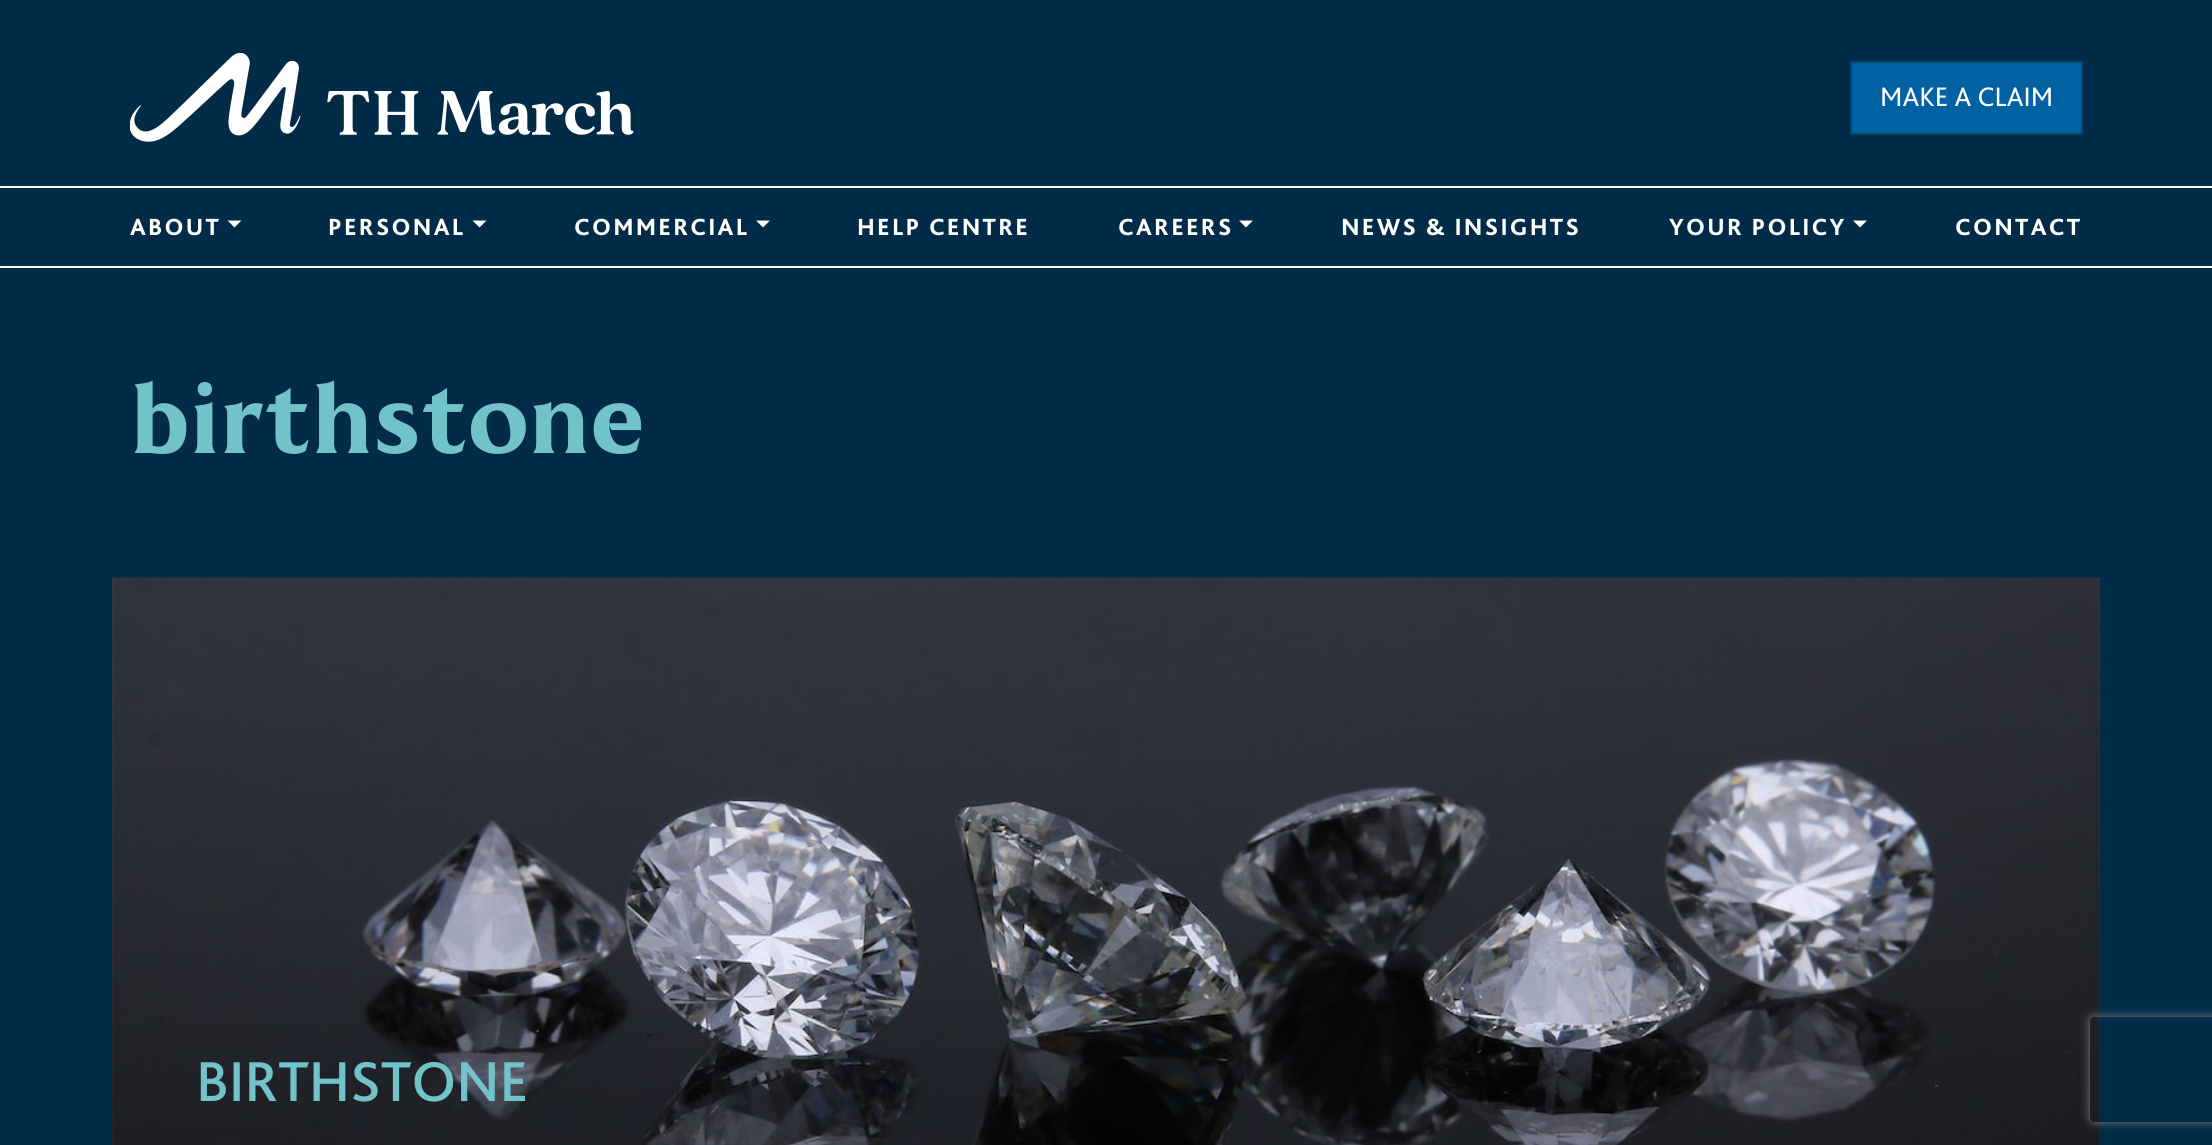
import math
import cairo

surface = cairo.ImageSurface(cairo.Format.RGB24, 2212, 1145)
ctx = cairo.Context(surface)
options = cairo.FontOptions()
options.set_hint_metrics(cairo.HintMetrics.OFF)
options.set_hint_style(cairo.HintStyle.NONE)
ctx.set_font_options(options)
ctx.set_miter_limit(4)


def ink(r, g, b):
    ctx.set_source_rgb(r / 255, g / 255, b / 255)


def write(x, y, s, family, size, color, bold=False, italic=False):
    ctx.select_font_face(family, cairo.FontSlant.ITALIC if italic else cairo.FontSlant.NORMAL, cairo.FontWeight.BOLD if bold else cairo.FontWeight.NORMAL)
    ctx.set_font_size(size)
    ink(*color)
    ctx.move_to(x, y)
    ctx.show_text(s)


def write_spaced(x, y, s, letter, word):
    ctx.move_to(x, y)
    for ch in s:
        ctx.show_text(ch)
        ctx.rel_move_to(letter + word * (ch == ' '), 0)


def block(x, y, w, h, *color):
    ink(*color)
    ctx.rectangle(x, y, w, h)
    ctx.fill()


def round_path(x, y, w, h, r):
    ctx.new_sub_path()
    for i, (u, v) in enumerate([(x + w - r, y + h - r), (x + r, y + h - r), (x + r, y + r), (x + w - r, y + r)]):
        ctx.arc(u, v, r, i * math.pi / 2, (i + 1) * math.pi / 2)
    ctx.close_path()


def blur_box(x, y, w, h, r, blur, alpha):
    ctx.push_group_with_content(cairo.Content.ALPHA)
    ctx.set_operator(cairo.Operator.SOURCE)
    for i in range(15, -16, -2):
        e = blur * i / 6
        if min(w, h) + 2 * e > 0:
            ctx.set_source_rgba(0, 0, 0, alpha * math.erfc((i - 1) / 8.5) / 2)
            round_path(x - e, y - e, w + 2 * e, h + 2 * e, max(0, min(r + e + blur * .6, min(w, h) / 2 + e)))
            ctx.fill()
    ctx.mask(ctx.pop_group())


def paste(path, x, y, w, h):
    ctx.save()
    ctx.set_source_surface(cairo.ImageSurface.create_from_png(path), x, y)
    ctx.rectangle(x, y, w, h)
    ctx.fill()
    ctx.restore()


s1 = dict(family="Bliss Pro", size=28, color=(255, 255, 255))
s2 = dict(family="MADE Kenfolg", size=98, color=(114, 194, 202))
s3 = dict(family="Bliss Pro Medium", size=58.75, color=(114, 194, 202))

ink(1, 43, 71)
ctx.paint()
paste("pic1.png", 130, 53, 504, 89)
ink(0, 98, 163)
ctx.rectangle(1851, 62, 231, 72)
ctx.fill_preserve()
ink(11, 68, 106)
ctx.stroke()
write(1880, 106, "MAKE A CLAIM", **s1)
block(0, 186, 2212, 2, 255, 255, 255)
block(0, 266, 2212, 2, 255, 255, 255)
ctx.select_font_face("Bliss Pro ExtraBold")
ctx.set_font_size(24.5)
write_spaced(130, 235, "ABOUT", 2.25, 0)
ctx.new_path()
ctx.move_to(227.5, 220.5)
ctx.line_to(241.5, 220.5)
ctx.line_to(234.5, 227.5)
ctx.close_path()
ctx.fill()
write_spaced(328, 235, "PERSONAL", 2.25, 0)
ctx.new_path()
ctx.move_to(472.5, 220.5)
ctx.line_to(486.5, 220.5)
ctx.line_to(479.5, 227.5)
ctx.close_path()
ctx.fill()
write_spaced(574, 235, "COMMERCIAL", 2.25, 0)
ctx.new_path()
ctx.move_to(756, 220.5)
ctx.line_to(770, 220.5)
ctx.line_to(763, 227.5)
ctx.close_path()
ctx.fill()
write_spaced(857, 235, "HELP CENTRE", 2.25, 0)
write_spaced(1118, 235, "CAREERS", 2.25, 0)
ctx.new_path()
ctx.move_to(1239, 220.5)
ctx.line_to(1253, 220.5)
ctx.line_to(1246, 227.5)
ctx.close_path()
ctx.fill()
write_spaced(1341, 235, "NEWS & INSIGHTS", 2.25, 0)
write_spaced(1669, 235, "YOUR POLICY", 2.25, 0)
ctx.new_path()
ctx.move_to(1853, 220.5)
ctx.line_to(1867, 220.5)
ctx.line_to(1860, 227.5)
ctx.close_path()
ctx.fill()
write_spaced(1955, 235, "CONTACT", 2.25, 0)
write(130, 453, "birthstone", **s2)
paste("pic2.png", 112, 577, 1988, 568)
write(196, 1101, "BIRTHSTONE", **s3)
ctx.save()
ctx.set_fill_rule(cairo.FillRule.EVEN_ODD)
ctx.new_path()
ctx.move_to(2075, 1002)
ctx.line_to(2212, 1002)
ctx.line_to(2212, 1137)
ctx.line_to(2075, 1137)
ctx.close_path()
ctx.move_to(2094, 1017)
ctx.line_to(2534, 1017)
ctx.curve_to(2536, 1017, 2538, 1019, 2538, 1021)
ctx.line_to(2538, 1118)
ctx.curve_to(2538, 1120, 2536, 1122, 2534, 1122)
ctx.line_to(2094, 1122)
ctx.curve_to(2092, 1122, 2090, 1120, 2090, 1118)
ctx.line_to(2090, 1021)
ctx.curve_to(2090, 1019, 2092, 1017, 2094, 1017)
ctx.close_path()
ctx.clip()
ink(128, 128, 128)
blur_box(2090, 1017, 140, 105, 4, 4.5, 1)
ctx.restore()
surface.write_to_png("screenshot.png")
